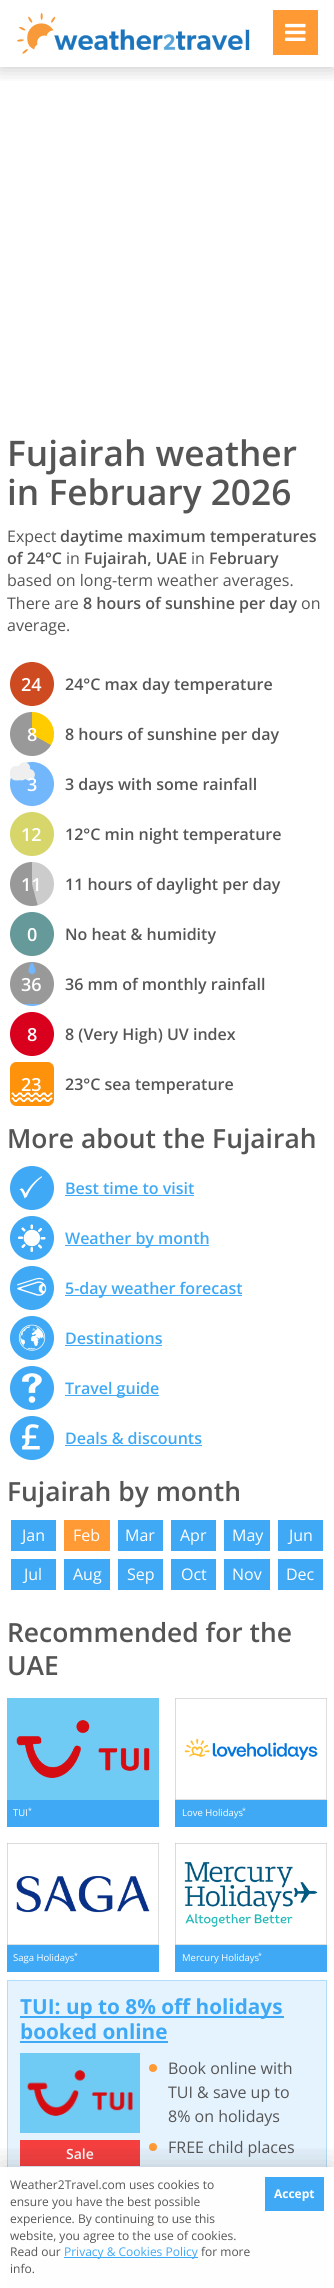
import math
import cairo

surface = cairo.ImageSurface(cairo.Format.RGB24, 334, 2288)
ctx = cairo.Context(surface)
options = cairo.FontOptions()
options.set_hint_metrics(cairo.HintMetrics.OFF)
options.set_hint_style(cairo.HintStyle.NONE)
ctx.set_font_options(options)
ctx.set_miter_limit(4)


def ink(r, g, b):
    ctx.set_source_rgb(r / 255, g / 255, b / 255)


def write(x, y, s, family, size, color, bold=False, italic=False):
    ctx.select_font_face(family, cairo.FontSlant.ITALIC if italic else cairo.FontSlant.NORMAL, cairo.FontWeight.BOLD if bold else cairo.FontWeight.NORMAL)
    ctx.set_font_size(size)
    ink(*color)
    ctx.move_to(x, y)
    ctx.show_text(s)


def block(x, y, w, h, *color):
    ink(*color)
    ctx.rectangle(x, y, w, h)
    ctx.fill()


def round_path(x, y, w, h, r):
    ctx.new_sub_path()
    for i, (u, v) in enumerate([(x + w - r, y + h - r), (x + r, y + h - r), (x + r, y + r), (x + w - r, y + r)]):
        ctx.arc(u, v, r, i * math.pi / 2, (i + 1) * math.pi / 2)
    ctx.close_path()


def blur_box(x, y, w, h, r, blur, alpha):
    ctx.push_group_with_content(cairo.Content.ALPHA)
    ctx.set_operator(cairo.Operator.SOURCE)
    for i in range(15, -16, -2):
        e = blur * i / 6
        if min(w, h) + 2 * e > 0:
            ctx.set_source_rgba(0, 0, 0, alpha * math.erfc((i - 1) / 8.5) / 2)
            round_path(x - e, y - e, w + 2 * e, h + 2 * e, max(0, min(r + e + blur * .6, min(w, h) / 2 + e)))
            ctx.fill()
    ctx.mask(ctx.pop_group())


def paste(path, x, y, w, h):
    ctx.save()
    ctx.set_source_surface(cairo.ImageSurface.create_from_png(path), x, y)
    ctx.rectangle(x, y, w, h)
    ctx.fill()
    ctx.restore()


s1 = dict(family="Open Sans SemiBold", size=35.25, color=(85, 85, 85))
s2 = dict(family="Open Sans", size=16, color=(85, 85, 85))
s3 = dict(family="Open Sans SemiBold", size=16, color=(85, 85, 85))
s4 = dict(family="Open Sans SemiBold", size=18, color=(255, 255, 255))
s5 = dict(family="Open Sans SemiBold", size=26.4, color=(85, 85, 85))
s6 = dict(family="Open Sans SemiBold", size=16, color=(63, 169, 245))
s7 = dict(family="Open Sans", size=16, color=(255, 255, 255))
s8 = dict(family="Open Sans", size=9.5, color=(255, 255, 255))
s9 = dict(family="Open Sans", size=7, color=(255, 255, 255))
s10 = dict(family="Open Sans", size=20.75, color=(63, 169, 245), bold=True)
s11 = dict(family="Open Sans SemiBold", size=14, color=(255, 255, 255))
s12 = dict(family="Open Sans", size=12, color=(85, 85, 85))
s13 = dict(family="Open Sans", size=12, color=(63, 169, 245))
s14 = dict(family="Open Sans", size=12, color=(255, 255, 255), bold=True)

ink(255, 255, 255)
ctx.paint()
ctx.save()
ctx.rectangle(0, 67, 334, 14)
ctx.clip()
ink(0, 0, 0)
blur_box(0, 0, 334, 67, 0, 10, 0.25)
ctx.restore()
paste("pic1.png", 17, 13, 233, 41)
block(273, 10, 45, 45, 255, 153, 51)
paste("pic2.png", 285, 23, 21, 18)
write(7, 466, "Fujairah weather", **s1)
write(7, 505, "in February 2026", **s1)
write(7, 542, "Expect", **s2)
write(60, 542, "daytime maximum temperatures", **s3)
write(7, 564, "of 24°C", **s3)
write(66, 564, "in", **s2)
write(84, 564, "Fujairah, UAE", **s3)
write(191, 564, "in", **s2)
write(209, 564, "February", **s3)
write(7, 586, "based on long-term weather averages.", **s2)
write(7, 609, "There are", **s2)
write(83, 609, "8 hours of sunshine per day", **s3)
write(301, 609, "on", **s2)
write(7, 631, "average.", **s2)
paste("pic3.png", 10, 662, 44, 44)
write(21, 691, "24", **s4)
write(65, 690, "24°C max day temperature", **s3)
paste("pic4.png", 10, 712, 44, 44)
write(27, 741, "8", **s4)
write(65, 740, "8 hours of sunshine per day", **s3)
paste("pic5.png", 10, 762, 44, 44)
write(27, 791, "3", **s4)
write(65, 790, "3 days with some rainfall", **s3)
paste("pic6.png", 10, 812, 44, 44)
write(21, 841, "12", **s4)
write(65, 840, "12°C min night temperature", **s3)
paste("pic7.png", 10, 862, 44, 44)
write(21, 891, "11", **s4)
write(65, 890, "11 hours of daylight per day", **s3)
paste("pic8.png", 10, 912, 44, 44)
write(27, 941, "0", **s4)
write(65, 940, "No heat & humidity", **s3)
paste("pic9.png", 10, 962, 44, 44)
write(21, 991, "36", **s4)
write(65, 990, "36 mm of monthly rainfall", **s3)
paste("pic10.png", 10, 1012, 44, 44)
write(27, 1041, "8", **s4)
write(65, 1040, "8 (Very High) UV index", **s3)
paste("pic11.png", 10, 1062, 44, 44)
write(21, 1091, "23", **s4)
write(65, 1090, "23°C sea temperature", **s3)
write(7, 1148, "More about the Fujairah", **s5)
paste("pic12.png", 10, 1166, 44, 44)
write(65, 1194, "Best time to visit", **s6)
block(65, 1195, 129, 1, 63, 169, 245)
paste("pic13.png", 10, 1216, 44, 44)
block(65, 1245, 144, 1, 63, 169, 245)
write(65, 1244, "Weather by month", **s6)
paste("pic14.png", 10, 1266, 44, 44)
block(65, 1295, 177, 1, 63, 169, 245)
write(65, 1294, "5-day weather forecast", **s6)
paste("pic15.png", 10, 1316, 44, 44)
write(65, 1344, "Destinations", **s6)
block(65, 1345, 97, 1, 63, 169, 245)
paste("pic16.png", 10, 1366, 44, 44)
block(65, 1395, 94, 1, 63, 169, 245)
write(65, 1394, "Travel guide", **s6)
paste("pic17.png", 10, 1416, 44, 44)
write(65, 1444, "Deals & discounts", **s6)
block(65, 1445, 137, 1, 63, 169, 245)
write(7, 1501, "Fujairah by month", **s5)
block(11, 1520, 45, 31, 63, 169, 245)
write(22, 1541, "Jan", **s7)
block(64, 1520, 46, 31, 255, 154, 53)
write(73, 1541, "Feb", **s7)
block(118, 1520, 45, 31, 63, 169, 245)
write(125, 1541, "Mar", **s7)
block(171, 1520, 45, 31, 63, 169, 245)
write(180, 1541, "Apr", **s7)
block(224, 1520, 46, 31, 63, 169, 245)
write(232, 1541, "May", **s7)
block(278, 1520, 45, 31, 63, 169, 245)
write(289, 1541, "Jun", **s7)
block(11, 1559, 45, 31, 63, 169, 245)
write(24, 1580, "Jul", **s7)
block(64, 1559, 46, 31, 63, 169, 245)
write(73, 1580, "Aug", **s7)
block(118, 1559, 45, 31, 63, 169, 245)
write(127, 1580, "Sep", **s7)
block(171, 1559, 45, 31, 63, 169, 245)
write(181, 1580, "Oct", **s7)
block(224, 1559, 46, 31, 63, 169, 245)
write(232, 1580, "Nov", **s7)
block(278, 1559, 45, 31, 63, 169, 245)
write(286, 1580, "Dec", **s7)
write(7, 1642, "Recommended for the", **s5)
write(7, 1675, "UAE", **s5)
paste("pic18.png", 7, 1698, 152, 102)
block(7, 1800, 152, 27, 63, 169, 245)
write(13, 1816, "TUI", **s8)
write(28, 1813, "*", **s9)
paste("pic19.png", 175, 1698, 152, 102)
block(175, 1800, 152, 27, 63, 169, 245)
write(182, 1816, "Love Holidays", **s8)
write(242, 1813, "*", **s9)
paste("pic20.png", 7, 1843, 152, 102)
block(7, 1945, 152, 27, 63, 169, 245)
write(13, 1961, "Saga Holidays", **s8)
write(74, 1958, "*", **s9)
paste("pic21.png", 175, 1843, 152, 102)
block(175, 1945, 152, 27, 63, 169, 245)
write(182, 1961, "Mercury Holidays", **s8)
write(258, 1958, "*", **s9)
ink(229, 243, 254)
ctx.rectangle(7.5, 1980.5, 319, 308)
ctx.fill_preserve()
ink(178, 221, 251)
ctx.set_line_width(1)
ctx.stroke()
block(20, 2016, 264, 2, 63, 169, 245)
write(20, 2014, "TUI: up to 8% off holidays", **s10)
write(20, 2039, "booked online", **s10)
block(20, 2041, 148, 2, 63, 169, 245)
paste("pic22.png", 20, 2053, 120, 80)
block(20, 2140, 120, 26, 245, 63, 63)
write(66, 2159, "Sale", **s11)
ink(255, 153, 51)
ctx.new_path()
ctx.arc(153, 2068, 4, 0, 2 * math.pi)
ctx.fill()
write(168, 2074, "Book online with", **s2)
write(168, 2098, "TUI & save up to", **s2)
write(168, 2122, "8% on holidays", **s2)
ink(255, 153, 51)
ctx.new_path()
ctx.arc(153, 2147, 4, 0, 2 * math.pi)
ctx.fill()
write(168, 2153, "FREE child places", **s2)
ink(255, 153, 51)
ctx.new_path()
ctx.arc(153, 2225, 4, 0, 2 * math.pi)
ctx.fill()
ctx.save()
ctx.rectangle(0, 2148, 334, 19)
ctx.clip()
ink(0, 0, 0)
blur_box(0, 2167, 334, 121, 0, 15, 0.2)
ctx.restore()
ctx.set_source_rgba(1, 1, 1, 0.95)
ctx.rectangle(7, 2167, 320, 121)
ctx.fill()
write(10, 2189, "Weather2Travel.com uses cookies to", **s12)
write(10, 2206, "ensure you have the best possible", **s12)
write(10, 2223, "experience. By continuing to use this", **s12)
write(10, 2240, "website, you agree to the use of cookies.", **s12)
write(10, 2256, "Read our", **s12)
block(64, 2257, 134, 1, 63, 169, 245)
write(64, 2256, "Privacy & Cookies Policy", **s13)
write(201, 2256, "for more", **s12)
write(10, 2273, "info.", **s12)
block(265, 2177, 59, 34, 63, 169, 245)
write(274, 2198, "Accept", **s14)
surface.write_to_png("screenshot.png")
